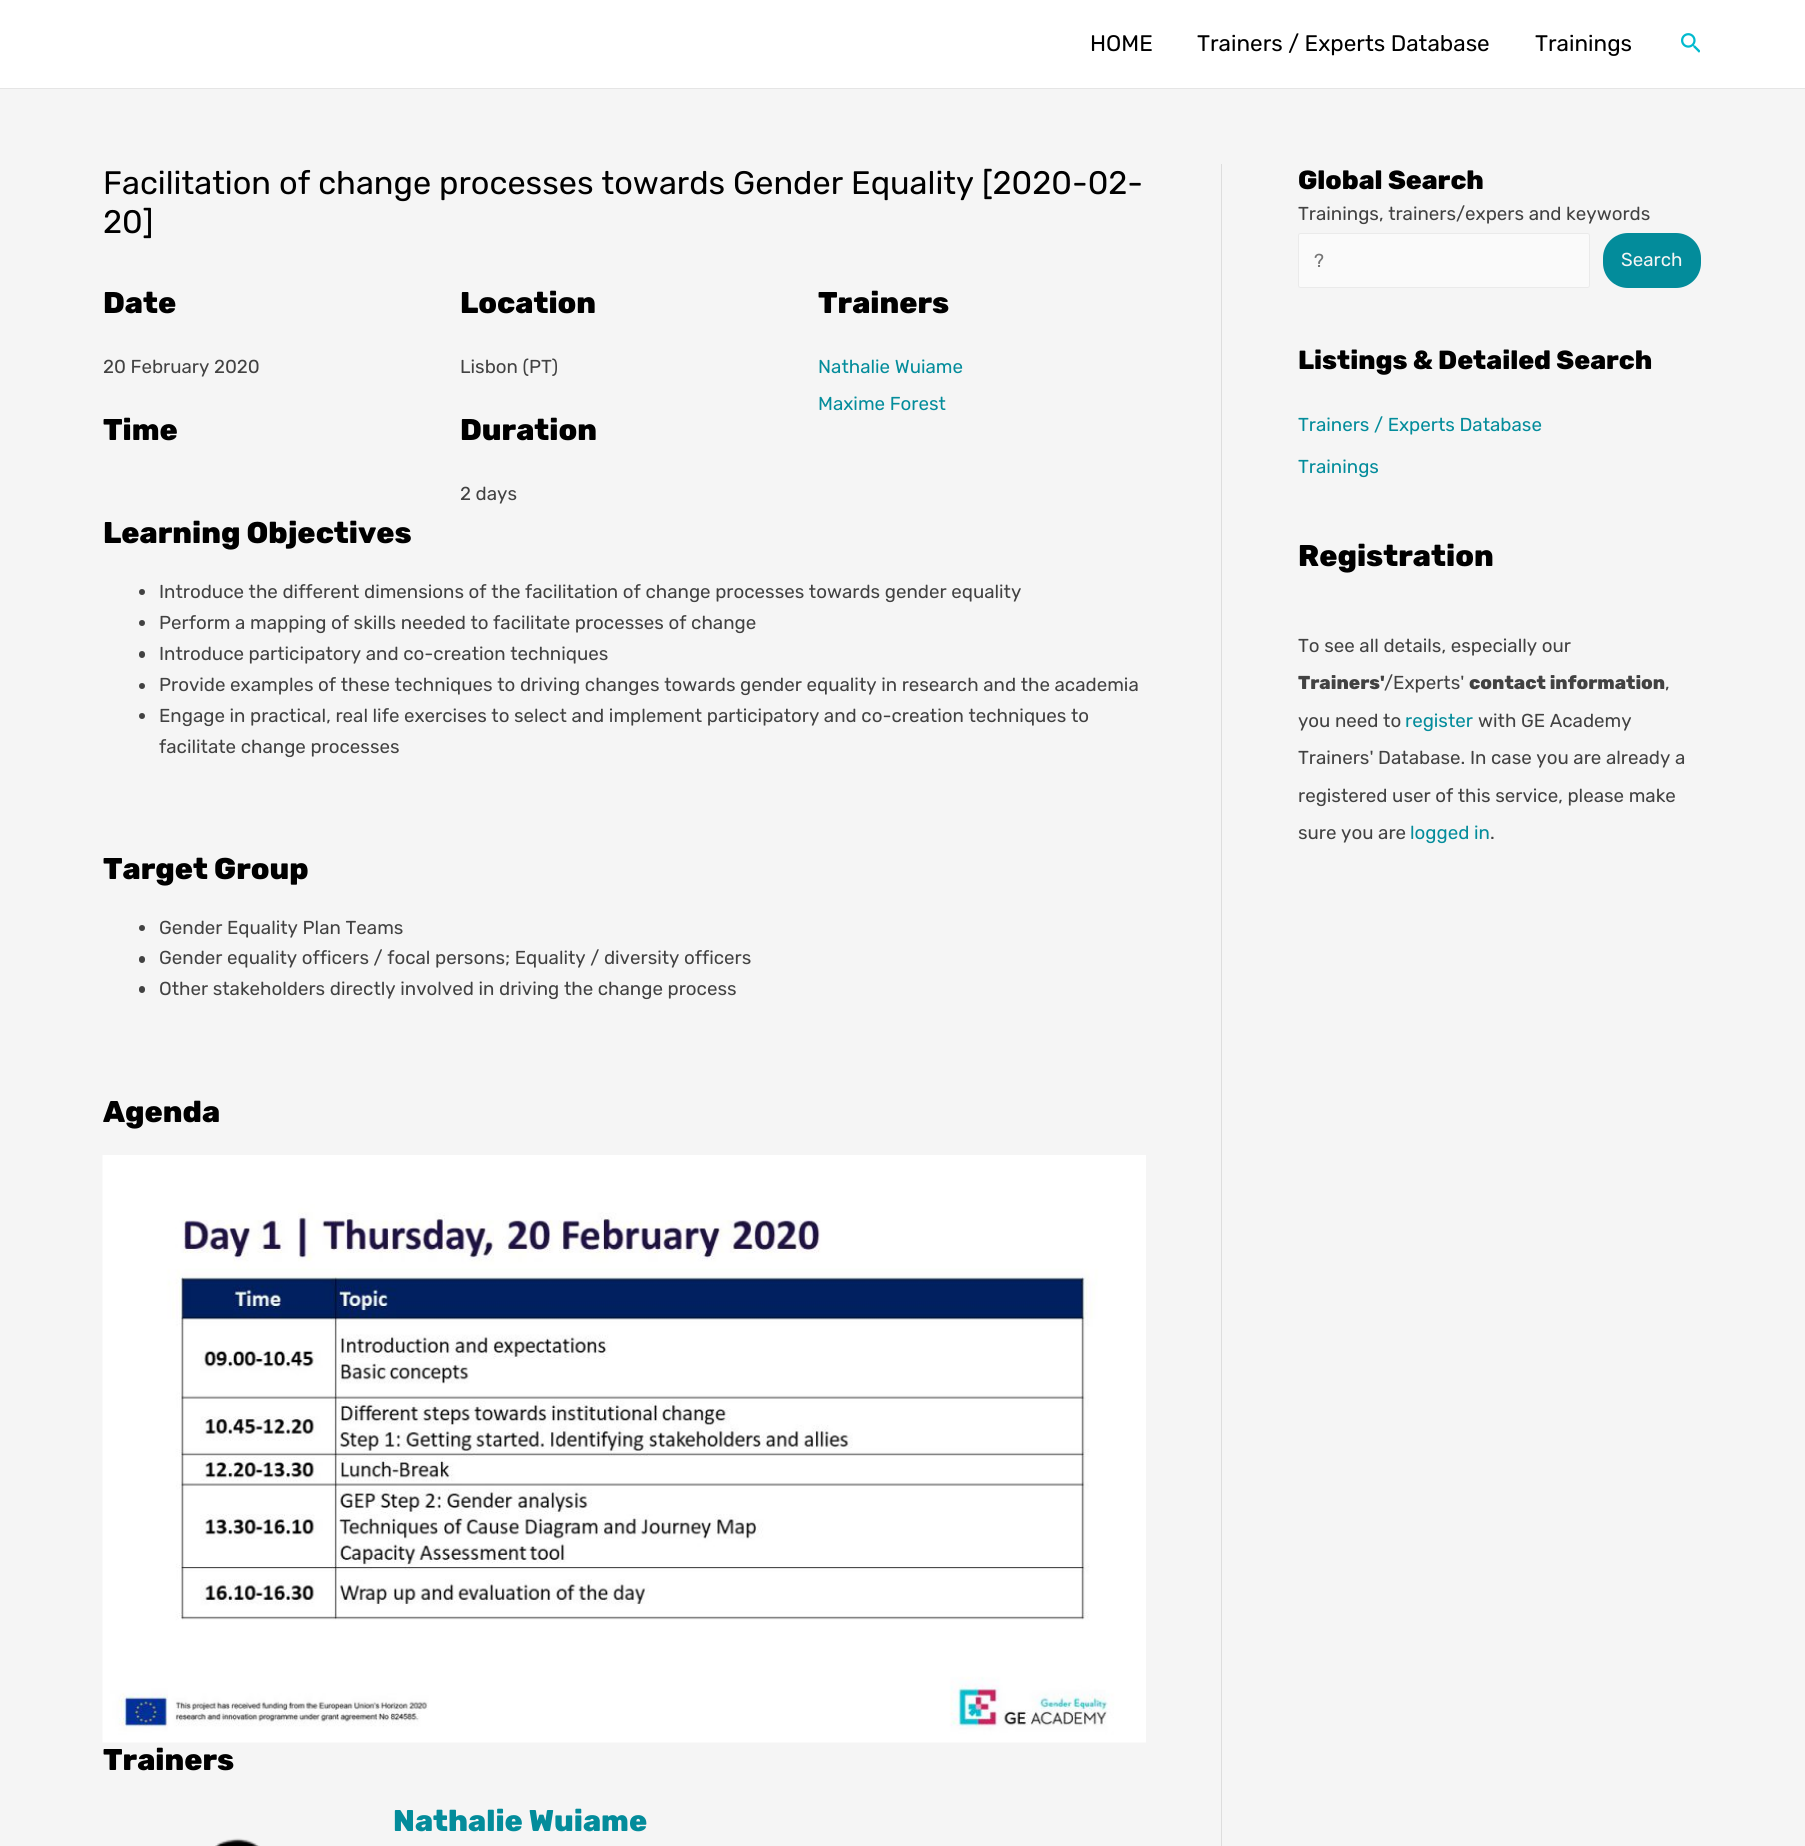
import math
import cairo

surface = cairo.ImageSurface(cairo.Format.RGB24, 1805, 1846)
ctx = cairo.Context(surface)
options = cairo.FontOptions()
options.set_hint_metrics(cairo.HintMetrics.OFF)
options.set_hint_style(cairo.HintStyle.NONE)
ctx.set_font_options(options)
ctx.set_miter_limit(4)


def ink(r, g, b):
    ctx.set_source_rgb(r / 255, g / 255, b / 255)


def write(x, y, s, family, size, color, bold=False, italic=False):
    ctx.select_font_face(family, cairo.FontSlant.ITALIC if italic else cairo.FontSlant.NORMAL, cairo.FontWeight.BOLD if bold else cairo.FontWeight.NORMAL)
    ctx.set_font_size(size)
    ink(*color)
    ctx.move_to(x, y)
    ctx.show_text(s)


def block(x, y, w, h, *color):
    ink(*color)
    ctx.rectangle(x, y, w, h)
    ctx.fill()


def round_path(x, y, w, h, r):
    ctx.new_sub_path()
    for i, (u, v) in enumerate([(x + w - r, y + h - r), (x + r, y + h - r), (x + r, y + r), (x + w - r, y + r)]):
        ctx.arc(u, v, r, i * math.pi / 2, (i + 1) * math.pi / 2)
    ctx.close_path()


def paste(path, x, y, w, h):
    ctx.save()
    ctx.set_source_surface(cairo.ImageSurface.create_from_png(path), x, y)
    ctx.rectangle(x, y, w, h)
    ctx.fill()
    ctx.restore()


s1 = dict(family="Rubik Light", size=22.5, color=(0, 0, 0))
s2 = dict(family="Rubik Light", size=32.5, color=(0, 0, 0))
s3 = dict(family="Rubik ExtraBold", size=30, color=(0, 0, 0))
s4 = dict(family="Rubik Light", size=18.75, color=(66, 66, 66))
s5 = dict(family="Rubik Light", size=18.75, color=(3, 140, 155))
s6 = dict(family="Rubik ExtraBold", size=30, color=(3, 140, 155))
s7 = dict(family="Rubik ExtraBold", size=26.25, color=(0, 0, 0))
s8 = dict(family="Rubik Light", size=18.75, color=(117, 117, 117))
s9 = dict(family="Rubik Light", size=18.75, color=(245, 245, 245))
s10 = dict(family="Rubik ExtraBold", size=18.75, color=(66, 66, 66))

ink(245, 245, 245)
ctx.paint()
block(0, 0, 1805, 88, 255, 255, 255)
block(0, 88, 1805, 1, 229, 229, 229)
write(1090, 51, "HOME", **s1)
write(1197, 51, "Trainers / Experts Database", **s1)
write(1535, 51, "Trainings", **s1)
paste("pic1.png", 1681, 33, 19, 20)
block(1221, 164, 1, 1682, 221, 221, 221)
write(103, 194, "Facilitation of change processes towards Gender Equality [2020-02-", **s2)
write(103, 233, "20]", **s2)
write(103, 313, "Date", **s3)
write(103, 373, "20 February 2020", **s4)
write(103, 440, "Time", **s3)
write(460, 313, "Location", **s3)
write(460, 373, "Lisbon (PT)", **s4)
write(460, 440, "Duration", **s3)
write(460, 500, "2 days", **s4)
write(818, 313, "Trainers", **s3)
write(818, 373, "Nathalie Wuiame", **s5)
write(818, 410, "Maxime Forest", **s5)
write(103, 543, "Learning Objectives", **s3)
ink(66, 66, 66)
ctx.new_path()
ctx.arc(142, 592, 3, 0, 2 * math.pi)
ctx.fill()
write(159, 598, "Introduce the different dimensions of the facilitation of change processes towards gender equality", **s4)
ctx.new_path()
ctx.arc(142, 623, 3, 0, 2 * math.pi)
ctx.fill()
write(159, 629, "Perform a mapping of skills needed to facilitate processes of change", **s4)
round_path(139, 651, 6, 7, 3)
ctx.fill()
write(159, 660, "Introduce participatory and co-creation techniques", **s4)
ctx.new_path()
ctx.arc(142, 686, 3, 0, 2 * math.pi)
ctx.fill()
write(159, 691, "Provide examples of these techniques to driving changes towards gender equality in research and the academia", **s4)
ctx.new_path()
ctx.arc(142, 716, 3, 0, 2 * math.pi)
ctx.fill()
write(159, 722, "Engage in practical, real life exercises to select and implement participatory and co-creation techniques to", **s4)
write(159, 753, "facilitate change processes", **s4)
write(103, 879, "Target Group", **s3)
ink(66, 66, 66)
ctx.new_path()
ctx.arc(142, 928, 3, 0, 2 * math.pi)
ctx.fill()
write(159, 934, "Gender Equality Plan Teams", **s4)
round_path(139, 956, 6, 7, 3)
ctx.fill()
write(159, 964, "Gender equality officers / focal persons; Equality / diversity officers", **s4)
round_path(139, 986, 6, 7, 3)
ctx.fill()
write(159, 995, "Other stakeholders directly involved in driving the change process", **s4)
write(103, 1122, "Agenda", **s3)
paste("pic2.png", 102, 1155, 1044, 588)
write(103, 1770, "Trainers", **s3)
write(393, 1831, "Nathalie Wuiame", **s6)
paste("pic3.png", 215, 1838, 45, 8)
write(1298, 189, "Global Search", **s7)
write(1298, 220, "Trainings, trainers/expers and keywords", **s4)
ink(250, 250, 250)
round_path(1298.5, 233.5, 291, 54, 2)
ctx.fill_preserve()
ink(234, 234, 234)
ctx.set_line_width(1)
ctx.stroke()
write(1314, 267, "?", **s8)
ink(3, 140, 155)
round_path(1603, 233, 98, 55, 25)
ctx.fill()
write(1621, 266, "Search", **s9)
write(1298, 369, "Listings & Detailed Search", **s7)
write(1298, 431, "Trainers / Experts Database", **s5)
write(1298, 473, "Trainings", **s5)
write(1298, 566, "Registration", **s3)
write(1298, 652, "To see all details, especially our", **s4)
write(1298, 689, "Trainers'", **s10)
write(1384, 689, "/Experts'", **s4)
write(1469, 689, "contact information", **s10)
write(1665, 689, ",", **s4)
write(1298, 727, "you need to", **s4)
write(1405, 727, "register", **s5)
write(1478, 727, "with GE Academy", **s4)
write(1298, 764, "Trainers' Database. In case you are already a", **s4)
write(1298, 802, "registered user of this service, please make", **s4)
write(1298, 839, "sure you are", **s4)
write(1410, 839, "logged in", **s5)
write(1490, 839, ".", **s4)
surface.write_to_png("screenshot.png")
